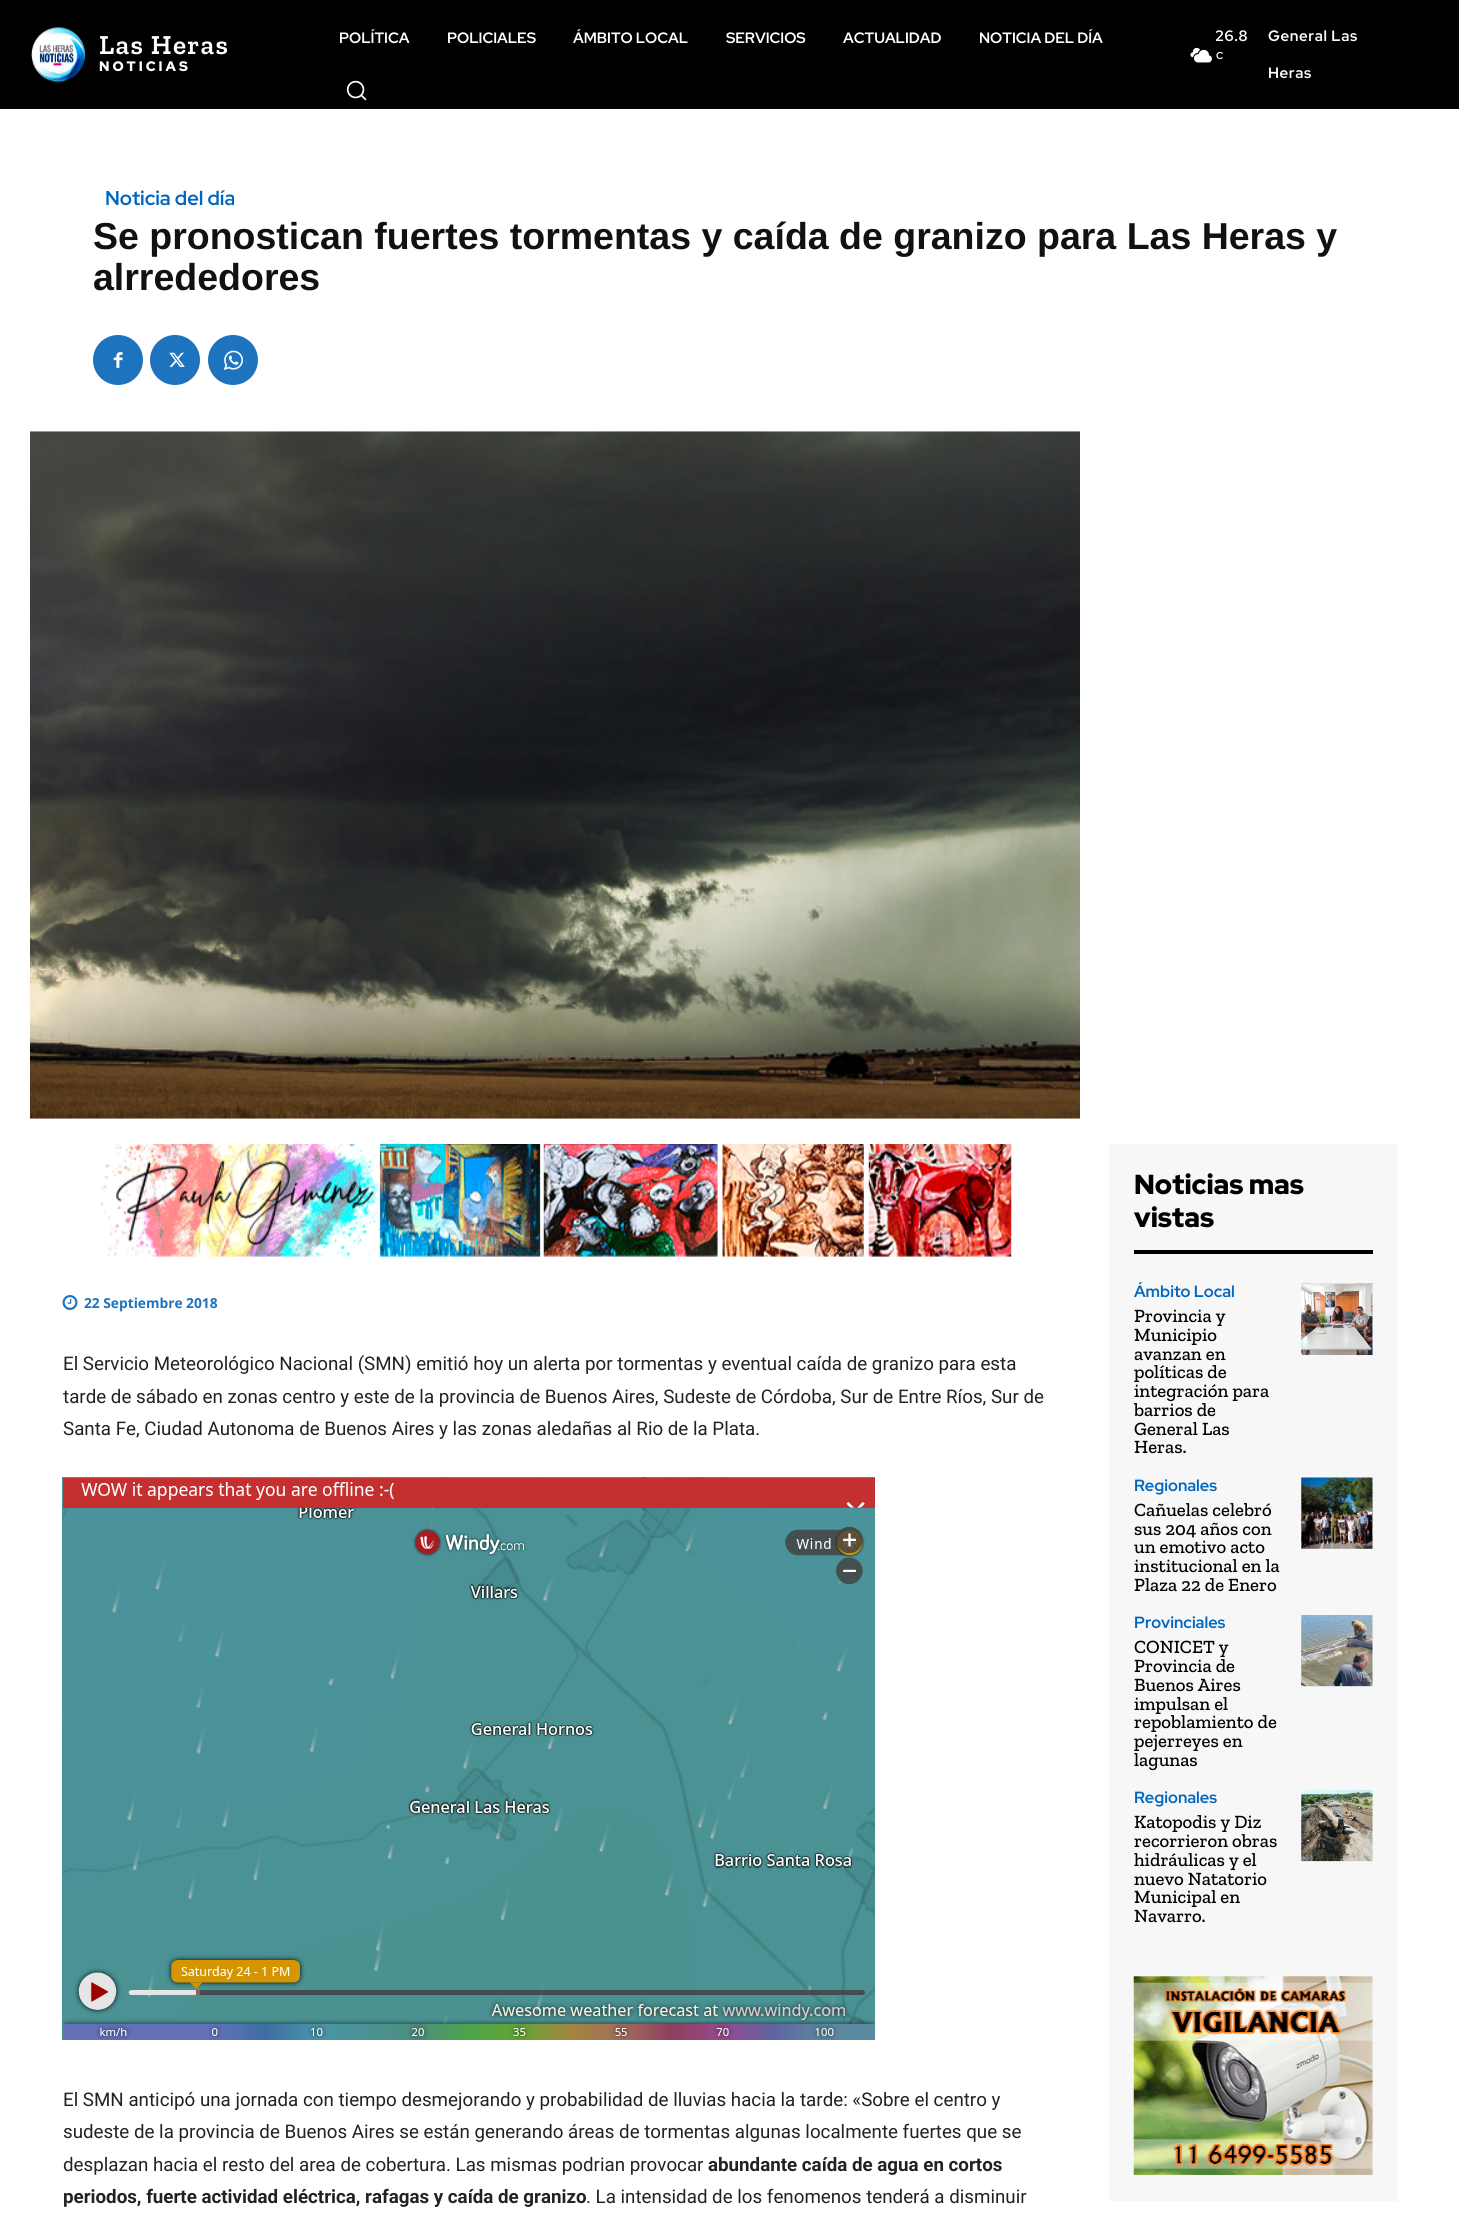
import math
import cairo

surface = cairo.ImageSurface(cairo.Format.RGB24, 1459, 2214)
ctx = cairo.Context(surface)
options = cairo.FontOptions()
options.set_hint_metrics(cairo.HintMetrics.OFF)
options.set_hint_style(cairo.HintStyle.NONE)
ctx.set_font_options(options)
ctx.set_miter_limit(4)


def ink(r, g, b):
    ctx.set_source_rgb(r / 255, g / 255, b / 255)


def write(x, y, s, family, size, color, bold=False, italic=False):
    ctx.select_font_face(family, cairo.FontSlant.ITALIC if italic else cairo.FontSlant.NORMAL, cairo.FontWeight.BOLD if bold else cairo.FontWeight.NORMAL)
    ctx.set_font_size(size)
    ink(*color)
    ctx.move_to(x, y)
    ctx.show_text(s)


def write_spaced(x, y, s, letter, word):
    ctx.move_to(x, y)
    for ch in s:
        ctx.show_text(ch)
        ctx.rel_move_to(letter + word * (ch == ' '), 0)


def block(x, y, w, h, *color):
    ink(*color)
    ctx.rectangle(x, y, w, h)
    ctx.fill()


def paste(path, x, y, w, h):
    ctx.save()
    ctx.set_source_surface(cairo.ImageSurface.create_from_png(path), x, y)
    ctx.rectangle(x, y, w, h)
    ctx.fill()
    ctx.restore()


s1 = dict(family="Red Hat Display", size=15, color=(255, 255, 255), bold=True)
s2 = dict(family="Red Hat Display", size=20, color=(0, 102, 191), bold=True)
s3 = dict(family="Liberation Sans", size=37.5, color=(17, 17, 17), bold=True)
s4 = dict(family="Open Sans", size=13.75, color=(30, 115, 190), bold=True)
s5 = dict(family="Roboto", size=18.75, color=(34, 34, 34))
s6 = dict(family="Roboto", size=18.75, color=(34, 34, 34), bold=True)
s7 = dict(family="Red Hat Display Black", size=27.5, color=(0, 0, 0))
s8 = dict(family="Red Hat Display", size=16.25, color=(0, 102, 191), bold=True)
s9 = dict(family="Zilla Slab Medium", size=18.75, color=(0, 0, 0))

ink(255, 255, 255)
ctx.paint()
block(0, 0, 1459, 109, 0, 0, 0)
paste("pic1.png", 31, 27, 55, 56)
ctx.select_font_face("Zilla Slab SemiBold")
ctx.set_font_size(27.5)
ink(255, 255, 255)
write_spaced(99, 54, "Las Heras", 1.25, 0)
ctx.select_font_face("Red Hat Display Black")
ctx.set_font_size(13.75)
write_spaced(99, 71, "NOTICIAS", 3, 0)
write(339, 43, "POLÍTICA", **s1)
write(447, 43, "POLICIALES", **s1)
write(573, 43, "ÁMBITO LOCAL", **s1)
write(726, 43, "SERVICIOS", **s1)
write(843, 43, "ACTUALIDAD", **s1)
write(979, 43, "NOTICIA DEL DÍA", **s1)
paste("pic2.png", 346, 80, 21, 21)
paste("pic3.png", 1190, 47, 22, 16)
write_spaced(1215, 41, "26.8", 0.6, 0)
ctx.set_font_size(10)
write_spaced(1216, 59, "C", 0.6, 0)
ctx.set_font_size(15)
write_spaced(1268, 41, "General Las", 0.6, 0)
write_spaced(1268, 78, "Heras", 0.6, 0)
write(105, 205, "Noticia del día", **s2)
write(93, 249, "Se pronostican fuertes tormentas y caída de granizo para Las Heras y", **s3)
write(93, 290, "alrrededores", **s3)
ink(30, 115, 190)
ctx.new_path()
ctx.arc(118, 360, 25, 0, 2 * math.pi)
ctx.fill()
paste("pic4.png", 113, 352, 10, 16)
ctx.arc(175, 360, 25, 0, 2 * math.pi)
ctx.fill()
paste("pic5.png", 169, 352, 16, 15)
ctx.arc(233, 360, 25, 0, 2 * math.pi)
ctx.fill()
paste("pic6.png", 223, 350, 20, 20)
paste("pic7.png", 30, 431, 1050, 688)
paste("pic8.png", 101, 1144, 911, 113)
paste("pic9.png", 62, 1295, 16, 15)
write(84, 1308, "22 Septiembre 2018", **s4)
write(63, 1370, "El Servicio Meteorológico Nacional (SMN) emitió hoy un alerta por tormentas y eventual caída de granizo para esta", **s5)
write(63, 1403, "tarde de sábado en zonas centro y este de la provincia de Buenos Aires, Sudeste de Córdoba, Sur de Entre Ríos, Sur de", **s5)
write(63, 1435, "Santa Fe, Ciudad Autonoma de Buenos Aires y las zonas aledañas al Rio de la Plata.", **s5)
paste("pic10.png", 62, 1477, 813, 563)
write(63, 2106, "El SMN anticipó una jornada con tiempo desmejorando y probabilidad de lluvias hacia la tarde: «Sobre el centro y", **s5)
write(63, 2138, "sudeste de la provincia de Buenos Aires se están generando áreas de tormentas algunas localmente fuertes que se", **s5)
write(63, 2171, "desplazan hacia el resto del area de cobertura. Las mismas podrian provocar", **s5)
write(708, 2171, "abundante caída de agua en cortos", **s6)
write(63, 2203, "periodos, fuerte actividad eléctrica, rafagas y caída de granizo", **s6)
write(586, 2203, ". La intensidad de los fenomenos tenderá a disminuir", **s5)
block(1109, 1144, 289, 1057, 247, 247, 247)
block(1134, 1250, 239, 4, 0, 0, 0)
write(1134, 1194, "Noticias mas", **s7)
write(1134, 1227, "vistas", **s7)
write(1134, 1297, "Ámbito Local", **s8)
write(1134, 1322, "Provincia y", **s9)
write(1134, 1341, "Municipio", **s9)
write(1134, 1360, "avanzan en", **s9)
write(1134, 1378, "políticas de", **s9)
write(1134, 1397, "integración para", **s9)
write(1134, 1416, "barrios de", **s9)
write(1134, 1435, "General Las", **s9)
write(1134, 1453, "Heras.", **s9)
paste("pic11.png", 1301, 1283, 72, 72)
write(1134, 1491, "Regionales", **s8)
write(1134, 1516, "Cañuelas celebró", **s9)
write(1134, 1535, "sus 204 años con", **s9)
write(1134, 1553, "un emotivo acto", **s9)
write(1134, 1572, "institucional en la", **s9)
write(1134, 1591, "Plaza 22 de Enero", **s9)
paste("pic12.png", 1301, 1477, 72, 72)
write(1134, 1628, "Provinciales", **s8)
write(1134, 1653, "CONICET y", **s9)
write(1134, 1672, "Provincia de", **s9)
write(1134, 1691, "Buenos Aires", **s9)
write(1134, 1710, "impulsan el", **s9)
write(1134, 1728, "repoblamiento de", **s9)
write(1134, 1747, "pejerreyes en", **s9)
write(1134, 1766, "lagunas", **s9)
paste("pic13.png", 1301, 1615, 72, 72)
write(1134, 1803, "Regionales", **s8)
write(1134, 1828, "Katopodis y Diz", **s9)
write(1134, 1847, "recorrieron obras", **s9)
write(1134, 1866, "hidráulicas y el", **s9)
write(1134, 1885, "nuevo Natatorio", **s9)
write(1134, 1903, "Municipal en", **s9)
write(1134, 1922, "Navarro.", **s9)
paste("pic14.png", 1301, 1790, 72, 72)
paste("pic15.png", 1133, 1976, 240, 199)
surface.write_to_png("screenshot.png")
